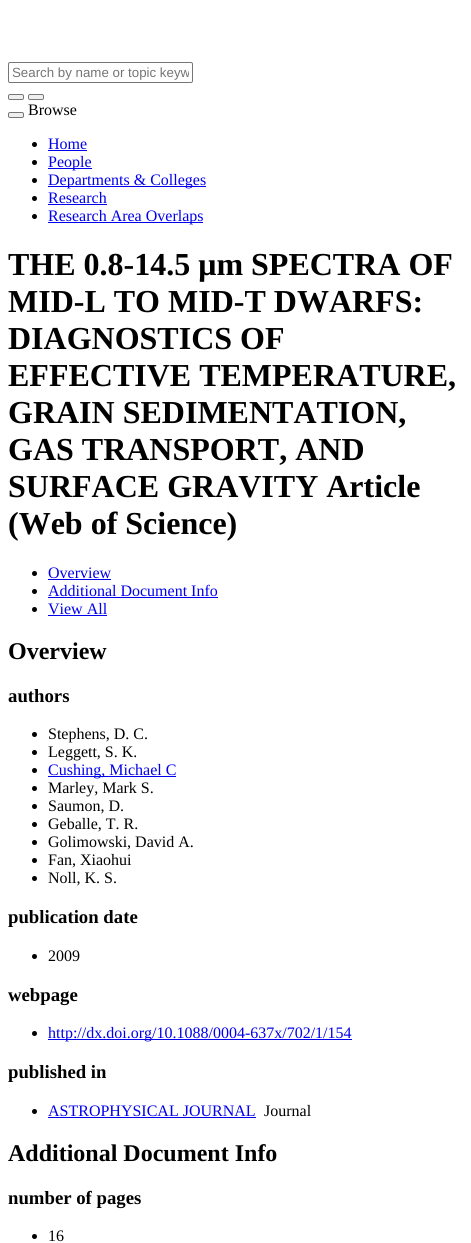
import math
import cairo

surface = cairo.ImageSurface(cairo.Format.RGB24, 471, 1243)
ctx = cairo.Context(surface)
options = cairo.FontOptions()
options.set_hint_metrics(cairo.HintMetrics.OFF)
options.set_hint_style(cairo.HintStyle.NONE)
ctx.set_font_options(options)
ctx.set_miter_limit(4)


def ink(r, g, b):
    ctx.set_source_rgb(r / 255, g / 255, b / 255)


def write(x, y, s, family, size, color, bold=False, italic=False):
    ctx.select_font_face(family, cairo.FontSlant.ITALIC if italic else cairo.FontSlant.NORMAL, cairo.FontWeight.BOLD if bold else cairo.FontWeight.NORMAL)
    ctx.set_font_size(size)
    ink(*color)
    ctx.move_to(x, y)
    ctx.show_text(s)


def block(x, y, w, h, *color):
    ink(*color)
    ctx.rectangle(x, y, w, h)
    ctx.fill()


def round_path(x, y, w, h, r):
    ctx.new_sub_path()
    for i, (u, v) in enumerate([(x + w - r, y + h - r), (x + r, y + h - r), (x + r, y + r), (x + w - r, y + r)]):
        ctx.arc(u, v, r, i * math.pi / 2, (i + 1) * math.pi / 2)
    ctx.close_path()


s1 = dict(family="Liberation Sans", size=13.3, color=(117, 117, 117))
s2 = dict(family="Liberation Serif", size=16, color=(0, 0, 0))
s3 = dict(family="Liberation Serif", size=16, color=(0, 0, 238))
s4 = dict(family="Liberation Serif", size=32, color=(0, 0, 0), bold=True)
s5 = dict(family="Liberation Serif", size=24, color=(0, 0, 0), bold=True)
s6 = dict(family="Liberation Serif", size=18.75, color=(0, 0, 0), bold=True)

ink(255, 255, 255)
ctx.paint()
round_path(8.5, 62.5, 184, 20, 1.5)
ink(118, 118, 118)
ctx.set_line_width(1)
ctx.stroke()
ctx.save()
ctx.rectangle(12, 65, 177, 15)
ctx.clip()
write(12, 77, "Search by name or topic keyw", **s1)
ctx.restore()
ink(239, 239, 239)
round_path(8.5, 94.5, 15, 5, 1.5)
ctx.fill_preserve()
ink(118, 118, 118)
ctx.stroke()
ink(239, 239, 239)
round_path(28.5, 94.5, 15, 5, 1.5)
ctx.fill_preserve()
ink(118, 118, 118)
ctx.stroke()
ink(239, 239, 239)
round_path(8.5, 112.5, 15, 5, 1.5)
ctx.fill_preserve()
ink(118, 118, 118)
ctx.stroke()
write(28, 115, "Browse", **s2)
ctx.new_path()
ctx.arc(34.5, 144.5, 2.5, 0, 2 * math.pi)
ctx.fill()
write(48, 149, "Home", **s3)
block(48, 150, 39, 1, 0, 0, 238)
ink(0, 0, 0)
ctx.new_path()
ctx.arc(34.5, 162.5, 2.5, 0, 2 * math.pi)
ctx.fill()
block(48, 168, 44, 1, 0, 0, 238)
write(48, 167, "People", **s3)
ink(0, 0, 0)
ctx.new_path()
ctx.arc(34.5, 180.5, 2.5, 0, 2 * math.pi)
ctx.fill()
block(48, 186, 158, 1, 0, 0, 238)
write(48, 185, "Departments & Colleges", **s3)
ink(0, 0, 0)
ctx.new_path()
ctx.arc(34.5, 198.5, 2.5, 0, 2 * math.pi)
ctx.fill()
write(48, 203, "Research", **s3)
block(48, 204, 59, 1, 0, 0, 238)
ink(0, 0, 0)
ctx.new_path()
ctx.arc(34.5, 216.5, 2.5, 0, 2 * math.pi)
ctx.fill()
block(48, 222, 155, 1, 0, 0, 238)
write(48, 221, "Research Area Overlaps", **s3)
write(8, 275, "THE 0.8-14.5 μm SPECTRA OF", **s4)
write(8, 312, "MID-L TO MID-T DWARFS:", **s4)
write(8, 349, "DIAGNOSTICS OF", **s4)
write(8, 386, "EFFECTIVE TEMPERATURE,", **s4)
write(8, 423, "GRAIN SEDIMENTATION,", **s4)
write(8, 460, "GAS TRANSPORT, AND", **s4)
write(8, 497, "SURFACE GRAVITY Article", **s4)
write(8, 534, "(Web of Science)", **s4)
ctx.new_path()
ctx.arc(34.5, 573.5, 2.5, 0, 2 * math.pi)
ctx.fill()
write(48, 578, "Overview", **s3)
block(48, 579, 63, 1, 0, 0, 238)
ink(0, 0, 0)
ctx.new_path()
ctx.arc(34.5, 591.5, 2.5, 0, 2 * math.pi)
ctx.fill()
write(48, 596, "Additional Document Info", **s3)
block(48, 597, 170, 1, 0, 0, 238)
ink(0, 0, 0)
ctx.new_path()
ctx.arc(34.5, 609.5, 2.5, 0, 2 * math.pi)
ctx.fill()
write(48, 614, "View All", **s3)
block(48, 615, 59, 1, 0, 0, 238)
write(8, 659, "Overview", **s5)
write(8, 702, "authors", **s6)
ctx.new_path()
ctx.arc(34.5, 734.5, 2.5, 0, 2 * math.pi)
ctx.fill()
write(48, 739, "Stephens, D. C.", **s2)
ctx.new_path()
ctx.arc(34.5, 752.5, 2.5, 0, 2 * math.pi)
ctx.fill()
write(48, 757, "Leggett, S. K.", **s2)
ctx.new_path()
ctx.arc(34.5, 770.5, 2.5, 0, 2 * math.pi)
ctx.fill()
block(48, 776, 128, 1, 0, 0, 238)
write(48, 775, "Cushing, Michael C", **s3)
ink(0, 0, 0)
ctx.new_path()
ctx.arc(34.5, 788.5, 2.5, 0, 2 * math.pi)
ctx.fill()
write(48, 793, "Marley, Mark S.", **s2)
ctx.new_path()
ctx.arc(34.5, 806.5, 2.5, 0, 2 * math.pi)
ctx.fill()
write(48, 811, "Saumon, D.", **s2)
ctx.new_path()
ctx.arc(34.5, 824.5, 2.5, 0, 2 * math.pi)
ctx.fill()
write(48, 829, "Geballe, T. R.", **s2)
ctx.new_path()
ctx.arc(34.5, 842.5, 2.5, 0, 2 * math.pi)
ctx.fill()
write(48, 847, "Golimowski, David A.", **s2)
ctx.new_path()
ctx.arc(34.5, 860.5, 2.5, 0, 2 * math.pi)
ctx.fill()
write(48, 865, "Fan, Xiaohui", **s2)
ctx.new_path()
ctx.arc(34.5, 878.5, 2.5, 0, 2 * math.pi)
ctx.fill()
write(48, 883, "Noll, K. S.", **s2)
write(8, 923, "publication date", **s6)
ctx.new_path()
ctx.arc(34.5, 956.5, 2.5, 0, 2 * math.pi)
ctx.fill()
write(48, 961, "2009", **s2)
write(8, 1001, "webpage", **s6)
ctx.new_path()
ctx.arc(34.5, 1033.5, 2.5, 0, 2 * math.pi)
ctx.fill()
block(48, 1039, 304, 1, 0, 0, 238)
write(48, 1038, "http://dx.doi.org/10.1088/0004-637x/702/1/154", **s3)
write(8, 1078, "published in", **s6)
ctx.new_path()
ctx.arc(34.5, 1111.5, 2.5, 0, 2 * math.pi)
ctx.fill()
write(48, 1116, "ASTROPHYSICAL JOURNAL", **s3)
block(48, 1117, 208, 1, 0, 0, 238)
write(264, 1116, "Journal", **s2)
write(8, 1161, "Additional Document Info", **s5)
write(8, 1204, "number of pages", **s6)
ctx.new_path()
ctx.arc(34.5, 1236.5, 2.5, 0, 2 * math.pi)
ctx.fill()
write(48, 1241, "16", **s2)
surface.write_to_png("screenshot.png")
